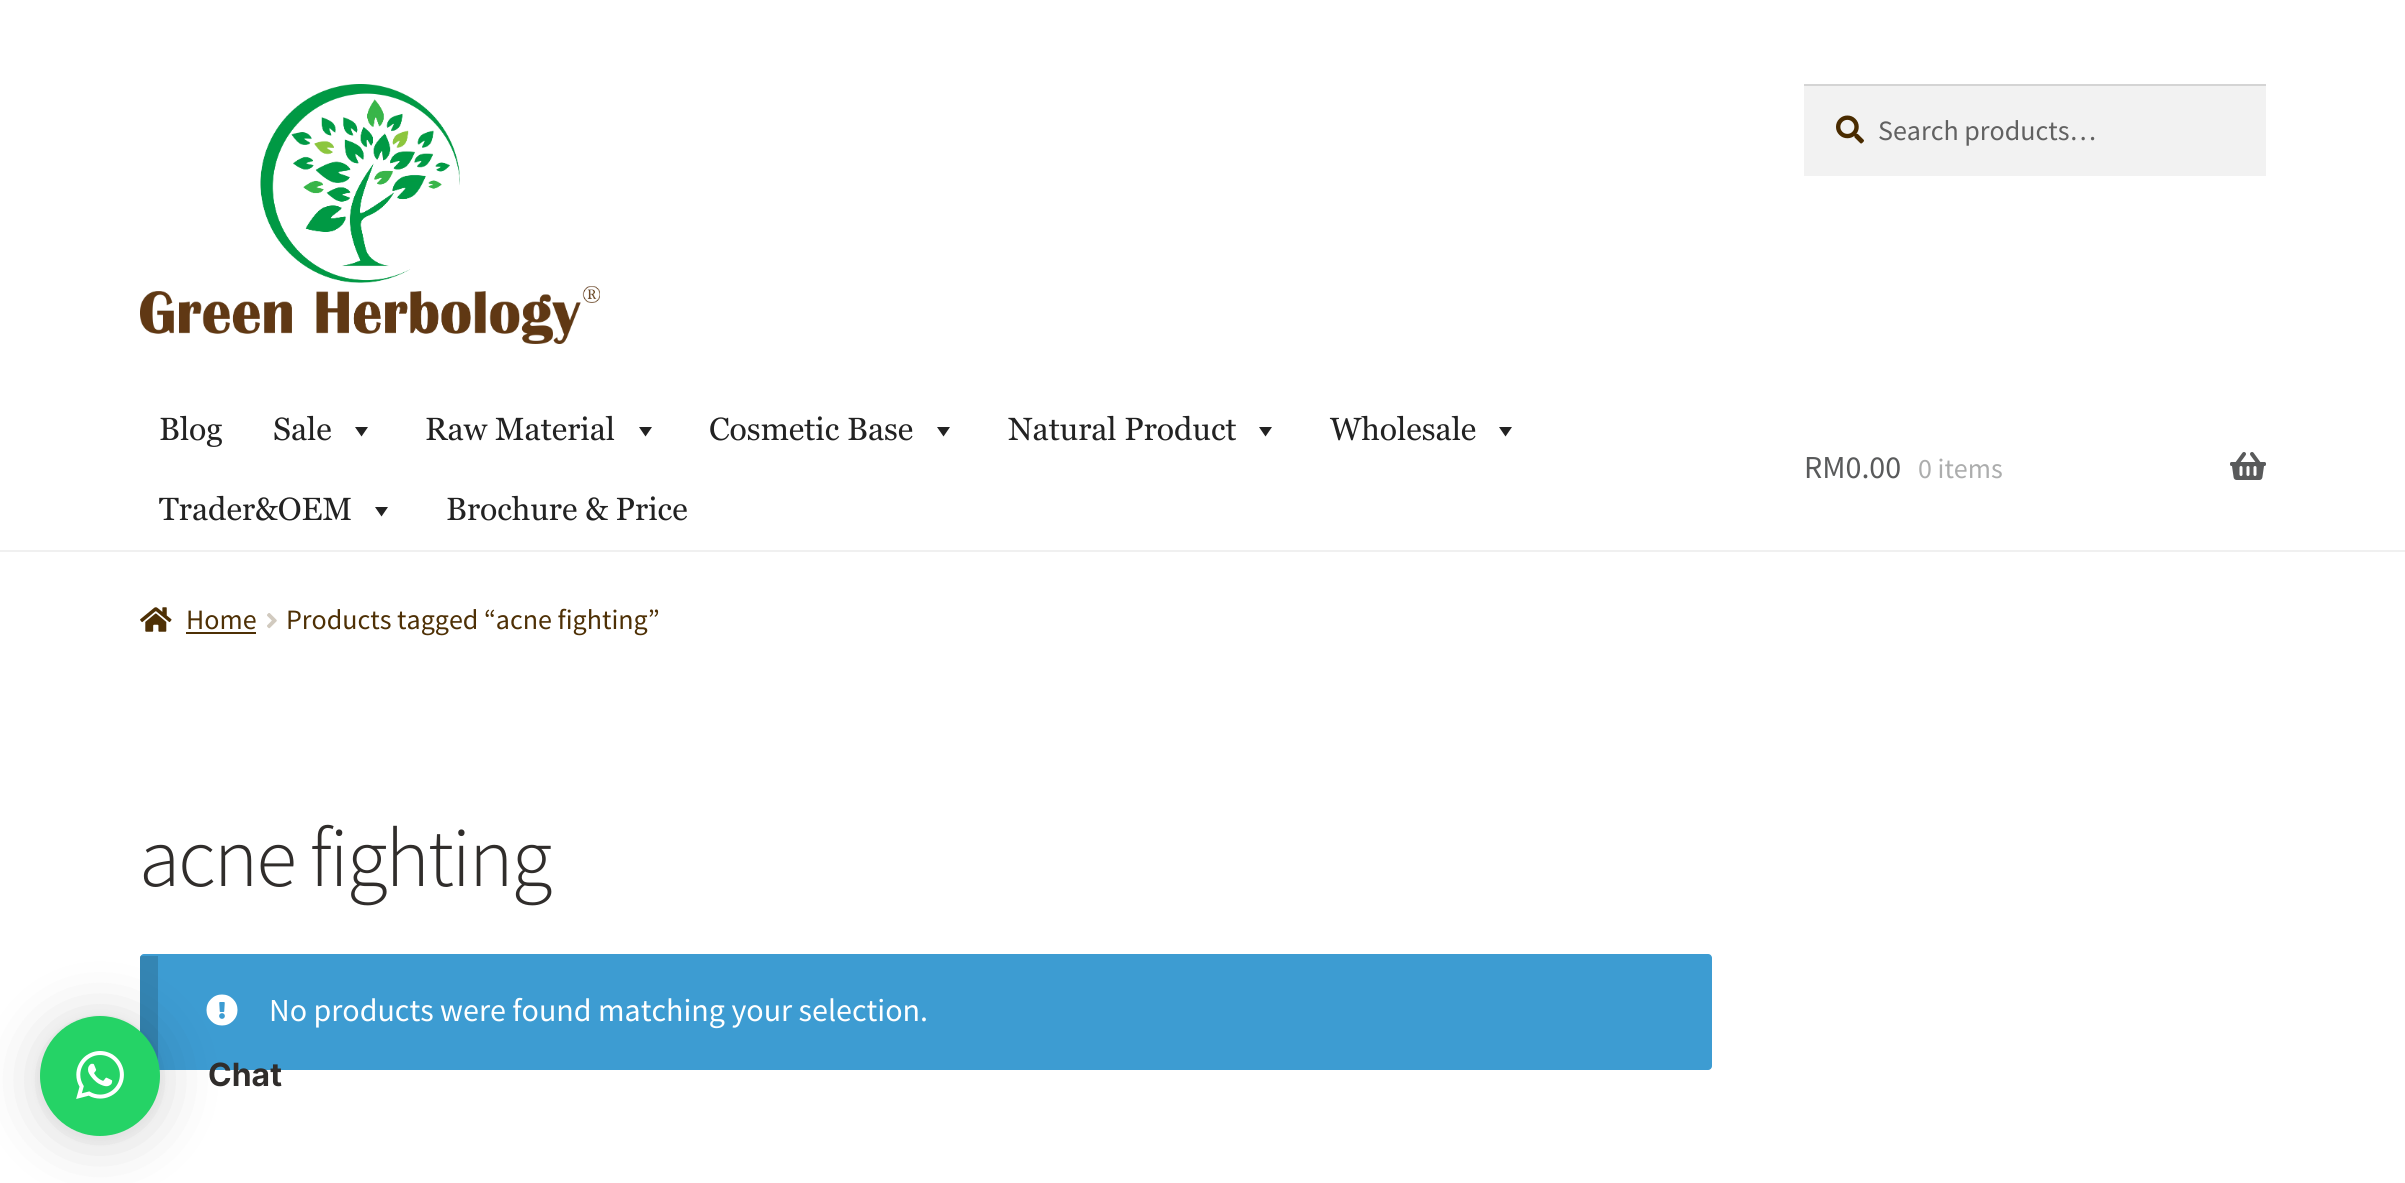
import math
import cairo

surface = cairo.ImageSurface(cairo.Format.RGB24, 2405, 1183)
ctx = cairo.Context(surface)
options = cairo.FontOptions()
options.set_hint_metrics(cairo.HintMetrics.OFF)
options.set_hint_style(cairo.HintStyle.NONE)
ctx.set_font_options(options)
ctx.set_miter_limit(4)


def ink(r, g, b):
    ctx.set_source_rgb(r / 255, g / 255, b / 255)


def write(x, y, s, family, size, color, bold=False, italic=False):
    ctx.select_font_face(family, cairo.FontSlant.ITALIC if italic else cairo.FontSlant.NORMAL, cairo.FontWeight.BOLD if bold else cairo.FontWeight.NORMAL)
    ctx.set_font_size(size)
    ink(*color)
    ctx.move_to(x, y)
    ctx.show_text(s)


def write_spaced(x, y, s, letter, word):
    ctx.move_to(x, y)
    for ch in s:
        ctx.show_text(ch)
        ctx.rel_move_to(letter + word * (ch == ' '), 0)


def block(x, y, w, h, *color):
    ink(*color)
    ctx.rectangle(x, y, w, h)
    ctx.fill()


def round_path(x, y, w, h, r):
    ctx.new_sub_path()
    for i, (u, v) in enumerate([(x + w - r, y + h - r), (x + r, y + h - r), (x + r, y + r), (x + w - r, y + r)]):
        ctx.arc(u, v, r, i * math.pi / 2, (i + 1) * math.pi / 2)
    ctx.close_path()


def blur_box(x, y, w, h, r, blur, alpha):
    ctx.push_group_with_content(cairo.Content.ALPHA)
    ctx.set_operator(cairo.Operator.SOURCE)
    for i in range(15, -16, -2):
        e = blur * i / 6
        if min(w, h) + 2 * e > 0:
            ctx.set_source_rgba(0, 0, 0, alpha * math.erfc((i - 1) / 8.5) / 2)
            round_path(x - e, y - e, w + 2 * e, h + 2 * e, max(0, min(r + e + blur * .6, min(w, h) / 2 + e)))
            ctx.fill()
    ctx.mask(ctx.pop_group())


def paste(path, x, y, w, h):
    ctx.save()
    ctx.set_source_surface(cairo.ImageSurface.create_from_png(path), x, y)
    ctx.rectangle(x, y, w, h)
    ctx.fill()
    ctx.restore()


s1 = dict(family="Source Sans Pro", size=28, color=(97, 97, 97))
s2 = dict(family="Georgia", size=32, color=(34, 34, 34))
s3 = dict(family="Source Sans Pro", size=32, color=(89, 90, 91))
s4 = dict(family="Source Sans Pro", size=28, color=(172, 173, 173))
s5 = dict(family="Source Sans Pro", size=28, color=(78, 48, 5))
s6 = dict(family="Source Sans Pro", size=32, color=(255, 255, 255))
s7 = dict(family="Inter", size=32, color=(48, 45, 43), bold=True)

ink(255, 255, 255)
ctx.paint()
block(0, 550, 2405, 2, 240, 240, 240)
paste("pic1.png", 140, 84, 460, 260)
block(1804, 86, 462, 90, 242, 242, 242)
paste("pic2.png", 1836, 115, 28, 29)
block(1804, 84, 462, 2, 212, 212, 212)
write(1878, 140, "Search products…", **s1)
write(159, 440, "Blog", **s2)
write(273, 440, "Sale", **s2)
ctx.new_path()
ctx.move_to(368, 427)
ctx.line_to(361.5, 436.5)
ctx.line_to(355, 427)
ctx.close_path()
ctx.fill()
write(425, 440, "Raw Material", **s2)
ctx.new_path()
ctx.move_to(652, 427)
ctx.line_to(645.5, 436.5)
ctx.line_to(639, 427)
ctx.close_path()
ctx.fill()
write(709, 440, "Cosmetic Base", **s2)
ctx.new_path()
ctx.move_to(950, 427)
ctx.line_to(943.5, 436.5)
ctx.line_to(937, 427)
ctx.close_path()
ctx.fill()
write(1008, 440, "Natural Product", **s2)
ctx.new_path()
ctx.move_to(1272, 427)
ctx.line_to(1265.5, 436.5)
ctx.line_to(1259, 427)
ctx.close_path()
ctx.fill()
write(1330, 440, "Wholesale", **s2)
ctx.new_path()
ctx.move_to(1512, 427)
ctx.line_to(1505.5, 436.5)
ctx.line_to(1499, 427)
ctx.close_path()
ctx.fill()
write(159, 520, "Trader&OEM", **s2)
ctx.new_path()
ctx.move_to(388, 507)
ctx.line_to(381.5, 516.5)
ctx.line_to(375, 507)
ctx.close_path()
ctx.fill()
write(446, 520, "Brochure & Price", **s2)
write(1804, 478, "RM0.00", **s3)
write(1918, 478, "0 items", **s4)
paste("pic3.png", 2230, 452, 36, 28)
paste("pic4.png", 140, 607, 32, 25)
write(186, 629, "Home", **s5)
block(186, 632, 70, 2, 78, 48, 5)
paste("pic5.png", 267, 613, 10, 16)
write(286, 629, "Products tagged “acne fighting”", **s5)
ctx.select_font_face("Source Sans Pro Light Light")
ctx.set_font_size(83.75)
ink(48, 45, 43)
write_spaced(139, 886, "acne fighting", -2, 0)
ink(61, 156, 210)
round_path(140, 954, 1572, 116, 4)
ctx.fill()
ctx.set_source_rgba(0, 0, 0, 0.15)
ctx.rectangle(140, 956, 18, 105)
ctx.fill()
paste("pic6.png", 206, 994, 32, 32)
write(269, 1021, "No products were found matching your selection.", **s6)
ink(0, 0, 0)
blur_box(40, 1020, 120, 120, 60, 32, 0.16)
blur_box(40, 1018, 120, 120, 60, 6, 0.06)
ink(37, 211, 102)
ctx.arc(100, 1076, 60, 0, 2 * math.pi)
ctx.fill()
paste("pic7.png", 76, 1051, 48, 48)
write(208, 1086, "Chat", **s7)
surface.write_to_png("screenshot.png")
